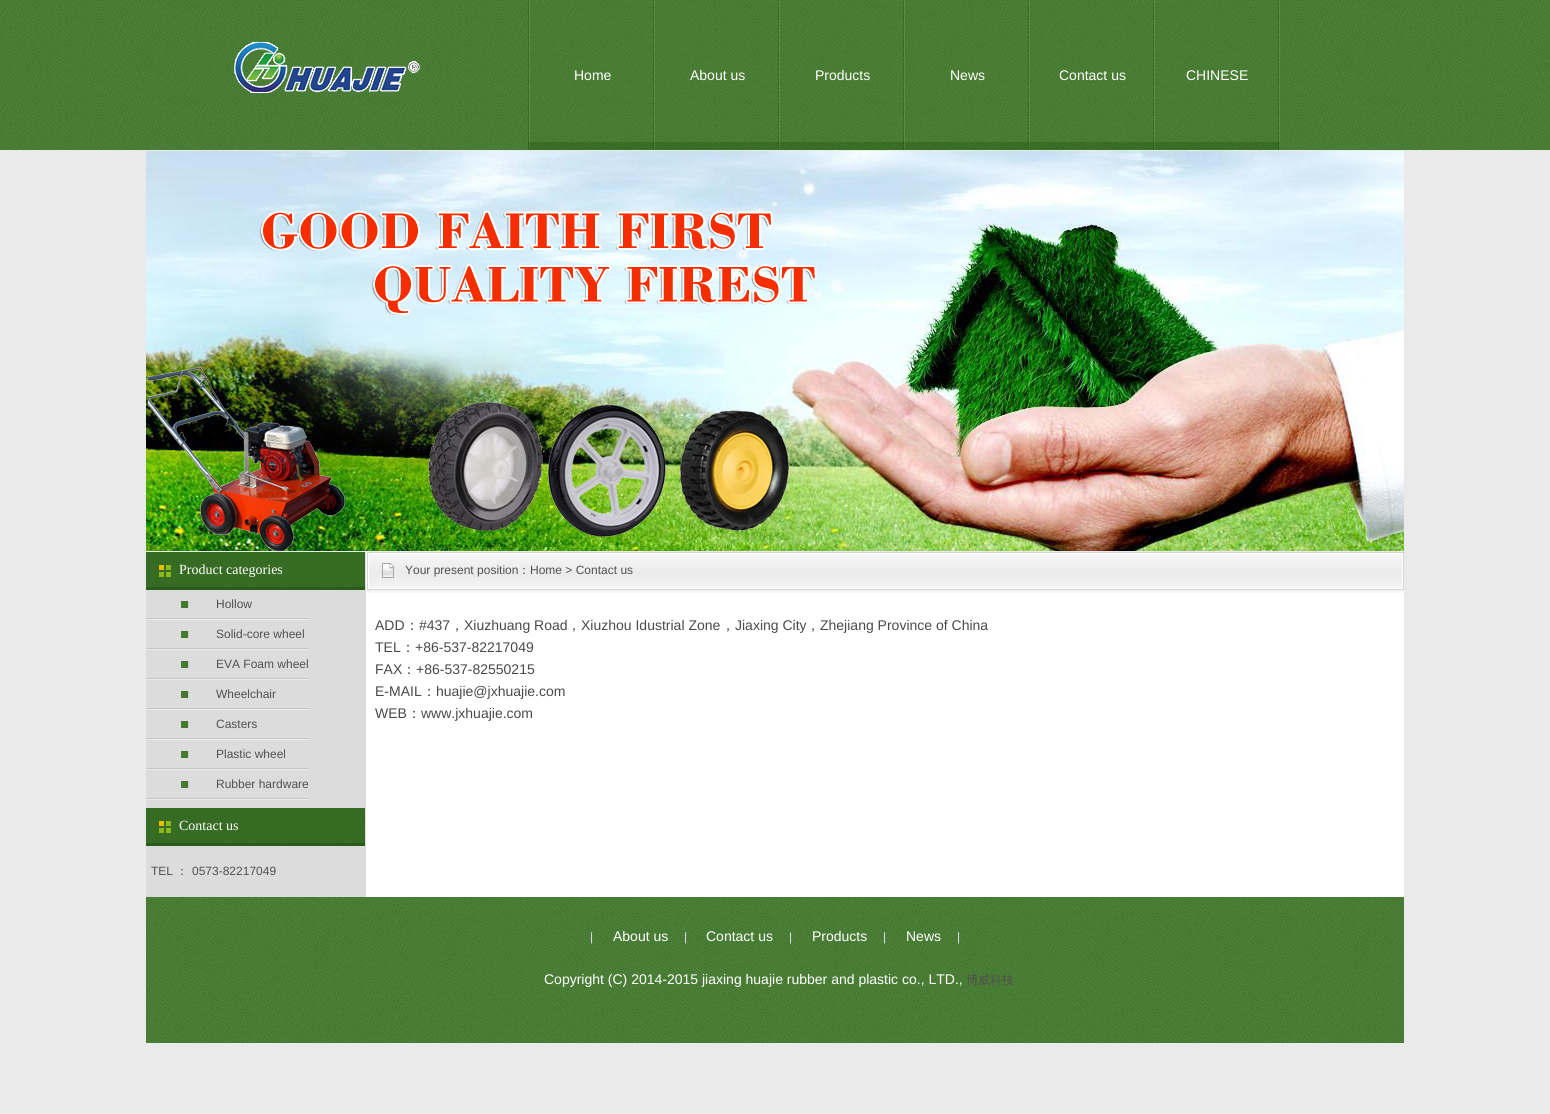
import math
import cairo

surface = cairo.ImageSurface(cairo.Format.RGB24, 1550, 1114)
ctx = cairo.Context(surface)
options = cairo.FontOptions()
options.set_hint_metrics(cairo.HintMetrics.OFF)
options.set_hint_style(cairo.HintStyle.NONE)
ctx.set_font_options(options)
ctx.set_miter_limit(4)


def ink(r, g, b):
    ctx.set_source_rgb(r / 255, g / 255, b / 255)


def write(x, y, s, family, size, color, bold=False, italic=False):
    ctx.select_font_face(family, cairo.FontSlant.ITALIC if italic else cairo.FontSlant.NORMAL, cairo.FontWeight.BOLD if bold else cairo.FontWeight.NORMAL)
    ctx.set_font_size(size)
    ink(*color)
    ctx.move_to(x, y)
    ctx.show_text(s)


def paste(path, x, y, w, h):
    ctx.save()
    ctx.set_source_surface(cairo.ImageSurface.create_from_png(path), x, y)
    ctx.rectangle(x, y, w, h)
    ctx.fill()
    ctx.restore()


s1 = dict(family="Liberation Sans", size=14, color=(255, 255, 255))
s2 = dict(family="Liberation Serif", size=14, color=(255, 255, 255))
s3 = dict(family="Liberation Sans", size=12, color=(80, 80, 80))
s4 = dict(family="WenQuanYi Zen Hei Medium", size=12, color=(80, 80, 80))
s5 = dict(family="Liberation Sans", size=14, color=(73, 73, 73))
s6 = dict(family="WenQuanYi Zen Hei Medium", size=14, color=(73, 73, 73))
s7 = dict(family="Liberation Sans", size=12, color=(224, 224, 239))

ink(234, 234, 234)
ctx.paint()
paste("pic1.png", 0, 0, 1550, 152)
paste("pic2.png", 234, 42, 186, 51)
paste("pic3.png", 528, 0, 2, 150)
paste("pic4.png", 530, 0, 125, 150)
write(574, 80, "Home", **s1)
paste("pic4.png", 655, 0, 125, 150)
write(690, 80, "About us", **s1)
paste("pic4.png", 780, 0, 125, 150)
write(815, 80, "Products", **s1)
paste("pic4.png", 905, 0, 125, 150)
write(950, 80, "News", **s1)
paste("pic4.png", 1030, 0, 125, 150)
write(1059, 80, "Contact us", **s1)
paste("pic4.png", 1155, 0, 125, 150)
write(1186, 80, "CHINESE", **s1)
paste("pic5.png", 146, 151, 1258, 400)
paste("pic6.png", 146, 552, 1258, 345)
paste("pic7.png", 146, 552, 219, 38)
write(179, 574, "Product categories", **s2)
paste("pic8.png", 317, 555, 48, 21)
paste("pic9.png", 146, 601, 163, 19)
write(216, 608, "Hollow", **s3)
paste("pic9.png", 146, 631, 163, 19)
write(216, 638, "Solid-core wheel", **s3)
paste("pic9.png", 146, 661, 163, 19)
write(216, 668, "EVA Foam wheel", **s3)
paste("pic9.png", 146, 691, 163, 19)
write(216, 698, "Wheelchair", **s3)
paste("pic9.png", 146, 721, 163, 19)
write(216, 728, "Casters", **s3)
paste("pic9.png", 146, 751, 163, 19)
write(216, 758, "Plastic wheel", **s3)
paste("pic9.png", 146, 781, 163, 19)
write(216, 788, "Rubber hardware", **s3)
paste("pic10.png", 367, 552, 1037, 41)
write(405, 574, "Your present position", **s3)
write(518, 574, "：", **s4)
write(530, 574, "Home > Contact us", **s3)
paste("pic11.png", 1402, 553, 2, 36)
write(375, 630, "ADD", **s5)
write(405, 630, "：", **s6)
write(419, 630, "#437", **s5)
write(450, 630, "，", **s6)
write(464, 630, "Xiuzhuang Road", **s5)
write(567, 630, "，", **s6)
write(581, 630, "Xiuzhou Idustrial Zone", **s5)
write(721, 630, "，", **s6)
write(735, 630, "Jiaxing City", **s5)
write(806, 630, "，", **s6)
write(820, 630, "Zhejiang Province of China", **s5)
write(375, 652, "TEL", **s5)
write(401, 652, "：", **s6)
write(415, 652, "+86-537-82217049", **s5)
write(375, 674, "FAX", **s5)
write(402, 674, "：", **s6)
write(416, 674, "+86-537-82550215", **s5)
write(375, 696, "E-MAIL", **s5)
write(422, 696, "：", **s6)
write(436, 696, "huajie@jxhuajie.com", **s5)
write(375, 718, "WEB", **s5)
write(407, 718, "：", **s6)
write(421, 718, "www.jxhuajie.com", **s5)
paste("pic7.png", 146, 808, 219, 38)
write(179, 830, "Contact us", **s2)
paste("pic8.png", 317, 811, 48, 21)
write(151, 875, "TEL", **s3)
write(176, 875, "：", **s4)
write(192, 875, "0573-82217049", **s3)
paste("pic12.png", 146, 897, 1258, 144)
paste("pic13.png", 146, 1041, 1258, 2)
write(590, 941, "|", **s7)
write(613, 941, "About us", **s1)
write(684, 941, "|", **s7)
write(706, 941, "Contact us", **s1)
write(789, 941, "|", **s7)
write(812, 941, "Products", **s1)
write(883, 941, "|", **s7)
write(906, 941, "News", **s1)
write(957, 941, "|", **s7)
write(544, 984, "Copyright (C) 2014-2015 jiaxing huajie rubber and plastic co., LTD.,", **s1)
write(966, 984, "博威科技", **s4)
surface.write_to_png("screenshot.png")
